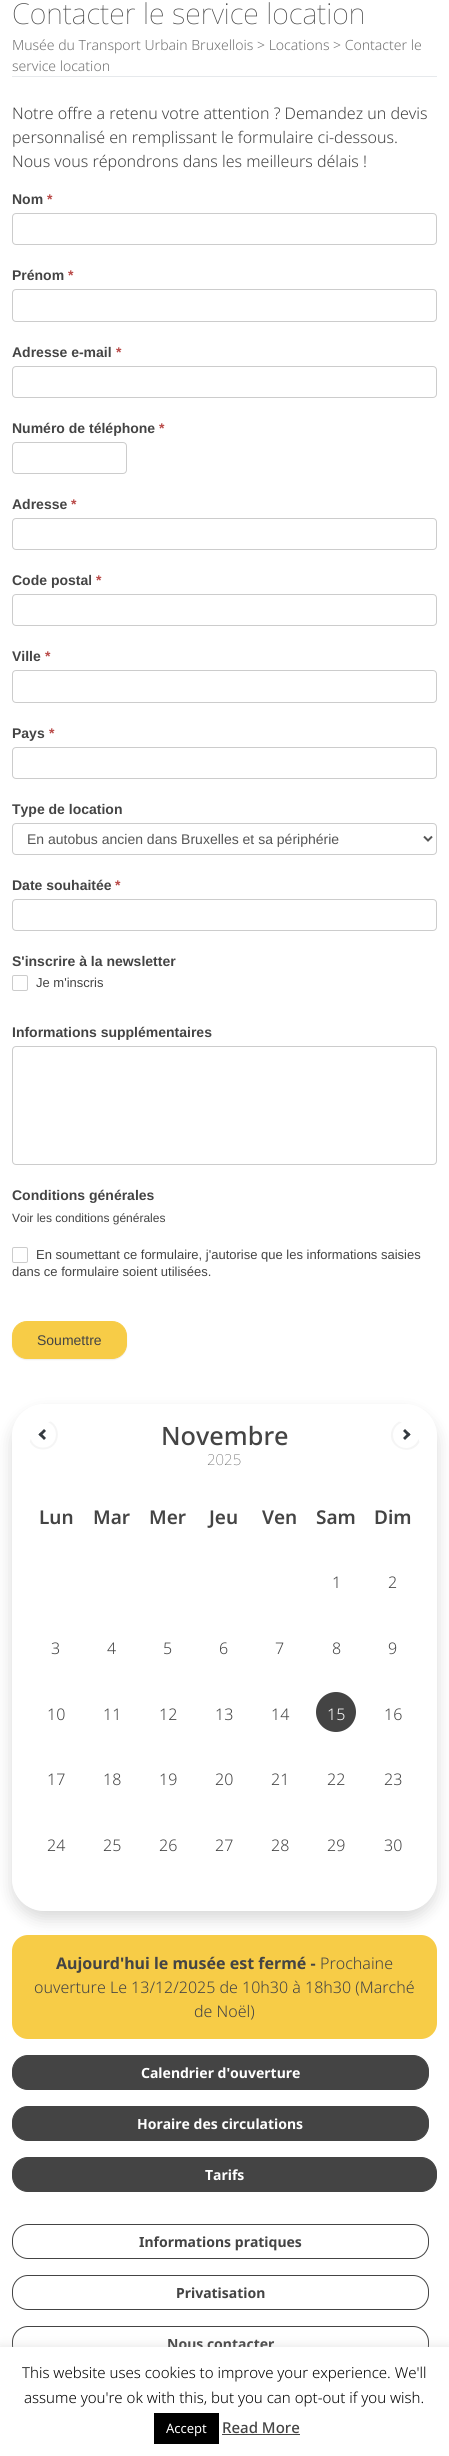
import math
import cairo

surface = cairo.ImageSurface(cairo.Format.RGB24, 449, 2456)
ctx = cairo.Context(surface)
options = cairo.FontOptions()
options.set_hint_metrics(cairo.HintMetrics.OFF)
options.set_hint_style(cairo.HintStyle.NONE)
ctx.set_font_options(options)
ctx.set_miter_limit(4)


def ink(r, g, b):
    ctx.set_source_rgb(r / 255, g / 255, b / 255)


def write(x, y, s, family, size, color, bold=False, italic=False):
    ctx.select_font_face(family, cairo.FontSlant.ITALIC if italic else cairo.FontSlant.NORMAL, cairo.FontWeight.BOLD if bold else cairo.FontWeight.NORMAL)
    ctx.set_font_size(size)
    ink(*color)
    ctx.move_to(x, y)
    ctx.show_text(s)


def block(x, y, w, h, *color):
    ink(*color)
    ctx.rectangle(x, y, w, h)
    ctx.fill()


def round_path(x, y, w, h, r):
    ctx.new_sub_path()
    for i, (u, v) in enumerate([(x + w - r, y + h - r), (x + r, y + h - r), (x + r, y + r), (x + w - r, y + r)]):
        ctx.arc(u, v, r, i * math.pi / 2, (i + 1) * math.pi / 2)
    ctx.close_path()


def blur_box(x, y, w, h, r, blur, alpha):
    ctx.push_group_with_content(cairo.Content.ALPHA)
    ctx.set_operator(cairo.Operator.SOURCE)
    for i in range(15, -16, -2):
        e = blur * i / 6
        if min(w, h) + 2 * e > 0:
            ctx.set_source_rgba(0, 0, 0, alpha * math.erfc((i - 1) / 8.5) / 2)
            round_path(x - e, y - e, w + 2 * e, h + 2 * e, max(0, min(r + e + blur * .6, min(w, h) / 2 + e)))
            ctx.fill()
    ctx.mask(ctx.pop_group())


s1 = dict(family="Noto Sans Thin", size=28.75, color=(68, 68, 68))
s2 = dict(family="Noto Sans Light", size=14, color=(115, 115, 115))
s3 = dict(family="Noto Sans Light", size=16, color=(68, 68, 68))
s4 = dict(family="Liberation Sans", size=14, color=(68, 68, 68), bold=True)
s5 = dict(family="Liberation Sans", size=14, color=(185, 74, 72), bold=True)
s6 = dict(family="Liberation Sans", size=14, color=(85, 85, 85))
s7 = dict(family="Liberation Sans", size=13, color=(68, 68, 68))
s8 = dict(family="Liberation Sans", size=12, color=(68, 68, 68))
s9 = dict(family="Liberation Sans", size=14, color=(68, 68, 68))
s10 = dict(family="Noto Sans Medium", size=25.25, color=(68, 68, 68))
s11 = dict(family="Noto Sans Thin", size=15, color=(68, 68, 68))
s12 = dict(family="Noto Sans SemiBold", size=19, color=(68, 68, 68))
s13 = dict(family="Noto Sans Light", size=16, color=(255, 255, 255))
s14 = dict(family="Noto Sans", size=16, color=(68, 68, 68), bold=True)
s15 = dict(family="Noto Sans", size=14, color=(255, 255, 255), bold=True)
s16 = dict(family="Noto Sans", size=14, color=(68, 68, 68), bold=True)
s17 = dict(family="Noto Sans Light", size=15, color=(0, 0, 0))
s18 = dict(family="Noto Sans", size=13, color=(255, 255, 255))
s19 = dict(family="Noto Sans Medium", size=15, color=(68, 68, 68))

ink(255, 255, 255)
ctx.paint()
write(12, 24, "Contacter le service location", **s1)
block(12, 76, 425, 1, 230, 233, 236)
write(12, 50, "Musée du Transport Urbain Bruxellois > Locations > Contacter le", **s2)
write(12, 71, "service location", **s2)
write(12, 119, "Notre offre a retenu votre attention ? Demandez un devis", **s3)
write(12, 143, "personnalisé en remplissant le formulaire ci-dessous.", **s3)
write(12, 167, "Nous vous répondrons dans les meilleurs délais !", **s3)
write(12, 204, "Nom", **s4)
write(47, 204, "*", **s5)
round_path(12.5, 213.5, 424, 31, 3.5)
ink(204, 204, 204)
ctx.set_line_width(1)
ctx.stroke()
write(12, 280, "Prénom", **s4)
write(68, 280, "*", **s5)
round_path(12.5, 289.5, 424, 32, 3.5)
ink(204, 204, 204)
ctx.stroke()
write(12, 357, "Adresse e-mail", **s4)
write(116, 357, "*", **s5)
round_path(12.5, 366.5, 424, 31, 3.5)
ink(204, 204, 204)
ctx.stroke()
write(12, 433, "Numéro de téléphone", **s4)
write(159, 433, "*", **s5)
round_path(12.5, 442.5, 114, 31, 3.5)
ink(204, 204, 204)
ctx.stroke()
write(12, 509, "Adresse", **s4)
write(71, 509, "*", **s5)
round_path(12.5, 518.5, 424, 31, 3.5)
ink(204, 204, 204)
ctx.stroke()
write(12, 585, "Code postal", **s4)
write(96, 585, "*", **s5)
round_path(12.5, 594.5, 424, 31, 3.5)
ink(204, 204, 204)
ctx.stroke()
write(12, 661, "Ville", **s4)
write(45, 661, "*", **s5)
round_path(12.5, 670.5, 424, 32, 3.5)
ink(204, 204, 204)
ctx.stroke()
write(12, 738, "Pays", **s4)
write(49, 738, "*", **s5)
round_path(12.5, 747.5, 424, 31, 3.5)
ink(204, 204, 204)
ctx.stroke()
write(12, 814, "Type de location", **s4)
round_path(12.5, 823.5, 424, 31, 3.5)
ink(204, 204, 204)
ctx.stroke()
ctx.new_path()
ctx.move_to(424, 836.5)
ctx.line_to(428, 840.5)
ctx.line_to(432, 836.5)
ink(85, 85, 85)
ctx.set_line_width(2)
ctx.stroke()
write(27, 844, "En autobus ancien dans Bruxelles et sa périphérie", **s6)
write(12, 890, "Date souhaitée", **s4)
write(115, 890, "*", **s5)
round_path(12.5, 899.5, 424, 31, 3.5)
ink(204, 204, 204)
ctx.set_line_width(1)
ctx.stroke()
write(12, 966, "S'inscrire à la newsletter", **s4)
round_path(12.5, 975.5, 15, 15, 1.5)
ink(204, 204, 204)
ctx.stroke()
write(36, 987, "Je m'inscris", **s7)
write(12, 1037, "Informations supplémentaires", **s4)
round_path(12.5, 1046.5, 424, 118, 3.5)
ink(204, 204, 204)
ctx.stroke()
write(12, 1200, "Conditions générales", **s4)
write(12, 1222, "Voir les conditions générales", **s8)
round_path(12.5, 1247.5, 15, 15, 1.5)
ink(204, 204, 204)
ctx.stroke()
write(36, 1259, "En soumettant ce formulaire, j'autorise que les informations saisies", **s7)
write(12, 1276, "dans ce formulaire soient utilisées.", **s7)
ink(238, 238, 238)
blur_box(12, 1322, 115, 38, 15, 0.5, 1)
ink(247, 204, 71)
round_path(12.5, 1321.5, 114, 37, 14.5)
ctx.fill_preserve()
ctx.stroke()
write(37, 1345, "Soumettre", **s9)
ctx.save()
ctx.set_fill_rule(cairo.FillRule.EVEN_ODD)
ctx.new_path()
ctx.move_to(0, 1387)
ctx.line_to(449, 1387)
ctx.line_to(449, 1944)
ctx.line_to(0, 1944)
ctx.close_path()
ctx.move_to(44, 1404)
ctx.line_to(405, 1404)
ctx.curve_to(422.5, 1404, 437, 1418.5, 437, 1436)
ctx.line_to(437, 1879)
ctx.curve_to(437, 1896.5, 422.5, 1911, 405, 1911)
ctx.line_to(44, 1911)
ctx.curve_to(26.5, 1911, 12, 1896.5, 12, 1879)
ctx.line_to(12, 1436)
ctx.curve_to(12, 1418.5, 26.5, 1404, 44, 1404)
ctx.close_path()
ctx.clip()
ink(0, 0, 0)
blur_box(12, 1412, 425, 507, 32, 8, 0.15)
ctx.restore()
ctx.save()
round_path(28, 1420, 393, 475, 32)
ctx.clip()
ctx.new_path()
ctx.move_to(43, 1448.5)
ctx.curve_to(24.5, 1448.5, 24.5, 1420.5, 43, 1420.5)
ctx.curve_to(61.5, 1420.5, 61.5, 1448.5, 43, 1448.5)
ctx.close_path()
ink(245, 245, 245)
ctx.set_line_width(2)
ctx.stroke()
ctx.restore()
ink(52, 58, 64)
ctx.new_path()
ctx.move_to(44, 1440)
ctx.line_to(38.5, 1434.5)
ctx.line_to(40.5, 1432.5)
ctx.line_to(46, 1438)
ctx.close_path()
ctx.fill()
ctx.new_path()
ctx.move_to(40.5, 1436.5)
ctx.line_to(38.5, 1434.5)
ctx.line_to(44, 1429)
ctx.line_to(46, 1431)
ctx.close_path()
ctx.fill()
write(161, 1445, "Novembre", **s10)
write(207, 1465, "2025", **s11)
ink(245, 245, 245)
ctx.new_path()
ctx.move_to(399, 1421.5)
ctx.curve_to(395.5, 1423.5, 392.5, 1427, 391.5, 1431)
ctx.curve_to(386.5, 1448, 411.5, 1457.5, 419.5, 1442)
ctx.line_to(418.5, 1439)
ctx.curve_to(416.5, 1444.5, 411.5, 1448, 406, 1448)
ctx.curve_to(399, 1448, 393, 1442, 393, 1435)
ctx.curve_to(393, 1429.5, 396.5, 1424.5, 402, 1422.5)
ctx.close_path()
ctx.fill()
ink(52, 58, 64)
ctx.new_path()
ctx.move_to(405, 1429)
ctx.line_to(410.5, 1434.5)
ctx.line_to(408.5, 1436.5)
ctx.line_to(403, 1431)
ctx.close_path()
ctx.fill()
ctx.new_path()
ctx.move_to(408.5, 1432.5)
ctx.line_to(410.5, 1434.5)
ctx.line_to(405, 1440)
ctx.line_to(403, 1438)
ctx.close_path()
ctx.fill()
write(39, 1524, "Lun", **s12)
write(93, 1524, "Mar", **s12)
write(149, 1524, "Mer", **s12)
write(209, 1524, "Jeu", **s12)
write(262, 1524, "Ven", **s12)
write(316, 1524, "Sam", **s12)
write(374, 1524, "Dim", **s12)
write(332, 1588, "1", **s3)
write(388, 1588, "2", **s3)
write(51, 1654, "3", **s3)
write(107, 1654, "4", **s3)
write(163, 1654, "5", **s3)
write(219, 1654, "6", **s3)
write(275, 1654, "7", **s3)
write(332, 1654, "8", **s3)
write(388, 1654, "9", **s3)
write(47, 1720, "10", **s3)
write(103, 1720, "11", **s3)
write(159, 1720, "12", **s3)
write(215, 1720, "13", **s3)
write(271, 1720, "14", **s3)
ctx.new_path()
ctx.arc(336, 1712, 20, 0, 2 * math.pi)
ctx.fill()
write(327, 1720, "15", **s13)
write(384, 1720, "16", **s3)
write(47, 1785, "17", **s3)
write(103, 1785, "18", **s3)
write(159, 1785, "19", **s3)
write(215, 1785, "20", **s3)
write(271, 1785, "21", **s3)
write(327, 1785, "22", **s3)
write(384, 1785, "23", **s3)
write(47, 1851, "24", **s3)
write(103, 1851, "25", **s3)
write(159, 1851, "26", **s3)
write(215, 1851, "27", **s3)
write(271, 1851, "28", **s3)
write(327, 1851, "29", **s3)
write(384, 1851, "30", **s3)
ink(247, 204, 71)
round_path(12, 1935, 425, 104, 16)
ctx.fill()
write(56, 1969, "Aujourd'hui le musée est fermé -", **s14)
write(320, 1969, "Prochaine", **s3)
write(34, 1993, "ouverture Le 13/12/2025 de 10h30 à 18h30 (Marché", **s3)
write(194, 2017, "de Noël)", **s3)
round_path(12.5, 2055.5, 416, 34, 15.5)
ctx.fill_preserve()
ctx.stroke()
write(141, 2078, "Calendrier d'ouverture", **s15)
ink(68, 68, 68)
round_path(12.5, 2106.5, 416, 34, 15.5)
ctx.fill_preserve()
ctx.stroke()
write(137, 2129, "Horaire des circulations", **s15)
ink(68, 68, 68)
round_path(12.5, 2157.5, 424, 34, 15.5)
ctx.fill_preserve()
ctx.stroke()
write(205, 2180, "Tarifs", **s15)
round_path(12.5, 2224.5, 416, 34, 15.5)
ink(68, 68, 68)
ctx.stroke()
write(139, 2247, "Informations pratiques", **s16)
round_path(12.5, 2275.5, 416, 34, 15.5)
ctx.stroke()
write(176, 2298, "Privatisation", **s16)
round_path(12.5, 2326.5, 416, 34, 15.5)
ctx.stroke()
write(167, 2349, "Nous contacter", **s16)
ink(172, 171, 171)
blur_box(0, 2346, 449, 109, 0, 5, 0.3)
block(0, 2347, 449, 109, 255, 255, 255)
write(22, 2378, "This website uses cookies to improve your experience. We'll", **s17)
write(24, 2403, "assume you're ok with this, but you can opt-out if you wish.", **s17)
block(154, 2413, 65, 31, 0, 0, 0)
write(166, 2433, "Accept", **s18)
write(222, 2433, "Read More", **s19)
block(222, 2434, 78, 1, 68, 68, 68)
surface.write_to_png("screenshot.png")
